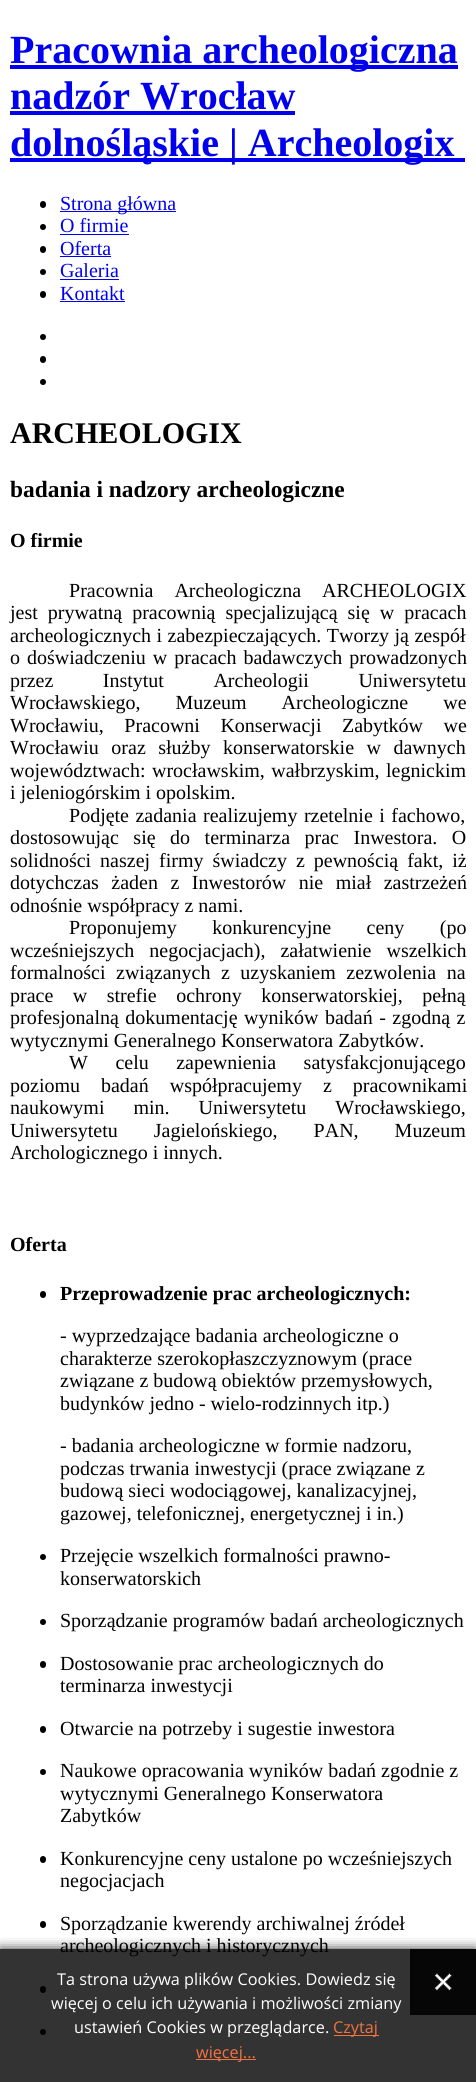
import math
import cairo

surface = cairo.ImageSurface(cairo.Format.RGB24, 476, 2082)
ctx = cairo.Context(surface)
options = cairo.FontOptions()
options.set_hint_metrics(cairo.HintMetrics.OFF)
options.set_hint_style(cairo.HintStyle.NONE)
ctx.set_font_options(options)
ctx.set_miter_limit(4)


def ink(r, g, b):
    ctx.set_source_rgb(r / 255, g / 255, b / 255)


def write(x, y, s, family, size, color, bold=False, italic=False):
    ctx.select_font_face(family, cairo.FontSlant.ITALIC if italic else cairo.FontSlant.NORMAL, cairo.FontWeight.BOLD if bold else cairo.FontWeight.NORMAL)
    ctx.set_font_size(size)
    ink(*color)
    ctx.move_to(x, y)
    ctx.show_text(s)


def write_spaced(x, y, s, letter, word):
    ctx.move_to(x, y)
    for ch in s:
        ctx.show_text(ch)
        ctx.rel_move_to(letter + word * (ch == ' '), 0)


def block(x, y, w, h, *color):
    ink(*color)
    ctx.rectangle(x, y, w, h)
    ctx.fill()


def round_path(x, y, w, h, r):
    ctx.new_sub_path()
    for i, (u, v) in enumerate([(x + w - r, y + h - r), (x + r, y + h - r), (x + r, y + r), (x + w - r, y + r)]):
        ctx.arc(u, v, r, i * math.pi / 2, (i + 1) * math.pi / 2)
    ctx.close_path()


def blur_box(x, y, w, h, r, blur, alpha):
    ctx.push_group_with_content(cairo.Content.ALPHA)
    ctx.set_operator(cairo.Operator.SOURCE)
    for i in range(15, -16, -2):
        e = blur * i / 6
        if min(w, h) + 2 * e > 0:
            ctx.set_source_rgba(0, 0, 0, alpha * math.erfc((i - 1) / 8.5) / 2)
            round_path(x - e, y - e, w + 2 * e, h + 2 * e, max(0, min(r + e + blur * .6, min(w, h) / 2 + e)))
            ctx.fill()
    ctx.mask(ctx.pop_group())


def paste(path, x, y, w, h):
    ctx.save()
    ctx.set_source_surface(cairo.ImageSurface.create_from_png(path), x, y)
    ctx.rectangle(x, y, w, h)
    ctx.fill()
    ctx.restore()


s1 = dict(family="Liberation Serif", size=40, color=(0, 0, 238), bold=True)
s2 = dict(family="Liberation Serif", size=20, color=(0, 0, 238))
s3 = dict(family="Liberation Serif", size=30, color=(0, 0, 0), bold=True)
s4 = dict(family="Liberation Serif", size=23.4, color=(0, 0, 0), bold=True)
s5 = dict(family="Liberation Serif", size=20, color=(0, 0, 0), bold=True)
s6 = dict(family="Liberation Serif", size=20, color=(0, 0, 0))
s7 = dict(family="Open Sans", size=16.25, color=(255, 255, 255))
s8 = dict(family="Open Sans", size=16.25, color=(240, 114, 65))

ink(255, 255, 255)
ctx.paint()
block(10, 65, 448, 4, 0, 0, 238)
write(10, 63, "Pracownia archeologiczna", **s1)
write(10, 109, "nadzór Wrocław", **s1)
block(10, 111, 285, 4, 0, 0, 238)
block(10, 158, 455, 4, 0, 0, 238)
write(10, 156, "dolnośląskie | Archeologix", **s1)
ink(0, 0, 0)
round_path(40, 201, 6, 7, 3)
ctx.fill()
block(60, 211, 116, 1, 0, 0, 238)
write(60, 210, "Strona główna", **s2)
ink(0, 0, 0)
ctx.new_path()
ctx.arc(43, 227, 3, 0, 2 * math.pi)
ctx.fill()
write(60, 232, "O firmie", **s2)
block(60, 234, 69, 1, 0, 0, 238)
ink(0, 0, 0)
round_path(40, 246, 6, 7, 3)
ctx.fill()
write(60, 255, "Oferta", **s2)
block(60, 256, 51, 1, 0, 0, 238)
ink(0, 0, 0)
ctx.new_path()
ctx.arc(43, 272, 3, 0, 2 * math.pi)
ctx.fill()
write(60, 277, "Galeria", **s2)
block(60, 279, 59, 1, 0, 0, 238)
ink(0, 0, 0)
round_path(40, 291, 6, 7, 3)
ctx.fill()
write(60, 300, "Kontakt", **s2)
block(60, 301, 65, 1, 0, 0, 238)
ink(0, 0, 0)
ctx.new_path()
ctx.arc(43, 337, 3, 0, 2 * math.pi)
ctx.fill()
round_path(40, 356, 6, 7, 3)
ctx.fill()
ctx.arc(43, 382, 3, 0, 2 * math.pi)
ctx.fill()
write(10, 443, "ARCHEOLOGIX", **s3)
write(10, 497, "badania i nadzory archeologiczne", **s4)
write(10, 547, "O firmie", **s5)
ctx.select_font_face("Liberation Serif")
write_spaced(69, 597, "Pracownia Archeologiczna ARCHEOLOGIX", 0, 16)
write_spaced(10, 619, "jest prywatną pracownią specjalizującą się w pracach", 0, 5)
write_spaced(10, 642, "archeologicznych i zabezpieczających. Tworzy ją zespół", 0, 0.5)
write_spaced(10, 664, "o doświadczeniu w pracach badawczych prowadzonych", 0, 2)
write_spaced(10, 687, "przez Instytut Archeologii Uniwersytetu", 0, 44.5)
write_spaced(10, 709, "Wrocławskiego, Muzeum Archeologiczne we", 0, 30)
write_spaced(10, 732, "Wrocławiu, Pracowni Konserwacji Zabytków we", 0, 15.5)
write_spaced(10, 754, "Wrocławiu oraz służby konserwatorskie w dawnych", 0, 7.5)
write_spaced(10, 777, "województwach: wrocławskim, wałbrzyskim, legnickim", 0, 1.5)
write(10, 799, "i jeleniogórskim i opolskim.", **s6)
write_spaced(69, 822, "Podjęte zadania realizujemy rzetelnie i fachowo,", 0, 1.5)
write_spaced(10, 844, "dostosowując się do terminarza prac Inwestora. O", 0, 9.5)
write_spaced(10, 867, "solidności naszej firmy świadczy z pewnością fakt, iż", 0, 4)
write_spaced(10, 889, "dotychczas żaden z Inwestorów nie miał zastrzeżeń", 0, 7.5)
write(10, 912, "odnośnie współpracy z nami.", **s6)
write_spaced(69, 934, "Proponujemy konkurencyjne ceny (po", 0, 30.5)
write_spaced(10, 957, "wcześniejszych negocjacjach), załatwienie wszelkich", 0, 10)
write_spaced(10, 979, "formalności związanych z uzyskaniem zezwolenia na", 0, 5.5)
write_spaced(10, 1002, "prace w strefie ochrony konserwatorskiej, pełną", 0, 14.5)
write_spaced(10, 1024, "profesjonalną dokumentację wyników badań - zgodną z", 0, 1.5)
write(10, 1047, "wytycznymi Generalnego Konserwatora Zabytków.", **s6)
write_spaced(69, 1069, "W celu zapewnienia satysfakcjonującego", 0, 22.5)
write_spaced(10, 1092, "poziomu badań współpracujemy z pracownikami", 0, 16)
write_spaced(10, 1114, "naukowymi min. Uniwersytetu Wrocławskiego,", 0, 24)
write_spaced(10, 1137, "Uniwersytetu Jagielońskiego, PAN, Muzeum", 0, 31)
write(10, 1159, "Archologicznego i innych.", **s6)
write(10, 1251, "Oferta", **s5)
round_path(40, 1291, 6, 7, 3)
ctx.fill()
write(60, 1300, "Przeprowadzenie prac archeologicznych:", **s5)
write(60, 1342, "- wyprzedzające badania archeologiczne o", **s6)
write(60, 1365, "charakterze szerokopłaszczyznowym (prace", **s6)
write(60, 1387, "związane z budową obiektów przemysłowych,", **s6)
write(60, 1410, "budynków jedno - wielo-rodzinnych itp.)", **s6)
write(60, 1452, "- badania archeologiczne w formie nadzoru,", **s6)
write(60, 1475, "podczas trwania inwestycji (prace związane z", **s6)
write(60, 1497, "budową sieci wodociągowej, kanalizacyjnej,", **s6)
write(60, 1520, "gazowej, telefonicznej, energetycznej i in.)", **s6)
ctx.new_path()
ctx.arc(43, 1557, 3, 0, 2 * math.pi)
ctx.fill()
write(60, 1562, "Przejęcie wszelkich formalności prawno-", **s6)
write(60, 1585, "konserwatorskich", **s6)
ctx.new_path()
ctx.arc(43, 1622, 3, 0, 2 * math.pi)
ctx.fill()
write(60, 1627, "Sporządzanie programów badań archeologicznych", **s6)
round_path(40, 1661, 6, 7, 3)
ctx.fill()
write(60, 1670, "Dostosowanie prac archeologicznych do", **s6)
write(60, 1692, "terminarza inwestycji", **s6)
round_path(40, 1726, 6, 7, 3)
ctx.fill()
write(60, 1735, "Otwarcie na potrzeby i sugestie inwestora", **s6)
ctx.new_path()
ctx.arc(43, 1772, 3, 0, 2 * math.pi)
ctx.fill()
write(60, 1777, "Naukowe opracowania wyników badań zgodnie z", **s6)
write(60, 1800, "wytycznymi Generalnego Konserwatora", **s6)
write(60, 1822, "Zabytków", **s6)
round_path(40, 1856, 6, 7, 3)
ctx.fill()
write(60, 1865, "Konkurencyjne ceny ustalone po wcześniejszych", **s6)
write(60, 1887, "negocjacjach", **s6)
round_path(40, 1921, 6, 7, 3)
ctx.fill()
write(60, 1930, "Sporządzanie kwerendy archiwalnej źródeł", **s6)
write(60, 1952, "archeologicznych i historycznych", **s6)
round_path(40, 1986, 6, 7, 3)
ctx.fill()
ctx.arc(43, 2032, 3, 0, 2 * math.pi)
ctx.fill()
ctx.save()
ctx.rectangle(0, 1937, 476, 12)
ctx.clip()
ink(0, 0, 0)
blur_box(0, 1949, 476, 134, 0, 6, 0.8)
ctx.restore()
ctx.set_source_rgba(0, 0, 0, 0.8)
ctx.rectangle(0, 1949, 476, 133)
ctx.fill()
write(57, 1985, "Ta strona używa plików Cookies. Dowiedz się", **s7)
write(51, 2009, "więcej o celu ich używania i możliwości zmiany", **s7)
write(74, 2033, "ustawień Cookies w przeglądarce.", **s7)
block(334, 2035, 45, 1, 240, 114, 65)
write(333, 2033, "Czytaj", **s8)
block(196, 2059, 60, 1, 240, 114, 65)
write(196, 2058, "więcej...", **s8)
block(410, 1949, 66, 66, 6, 6, 6)
paste("pic1.png", 434, 1973, 18, 18)
surface.write_to_png("screenshot.png")
